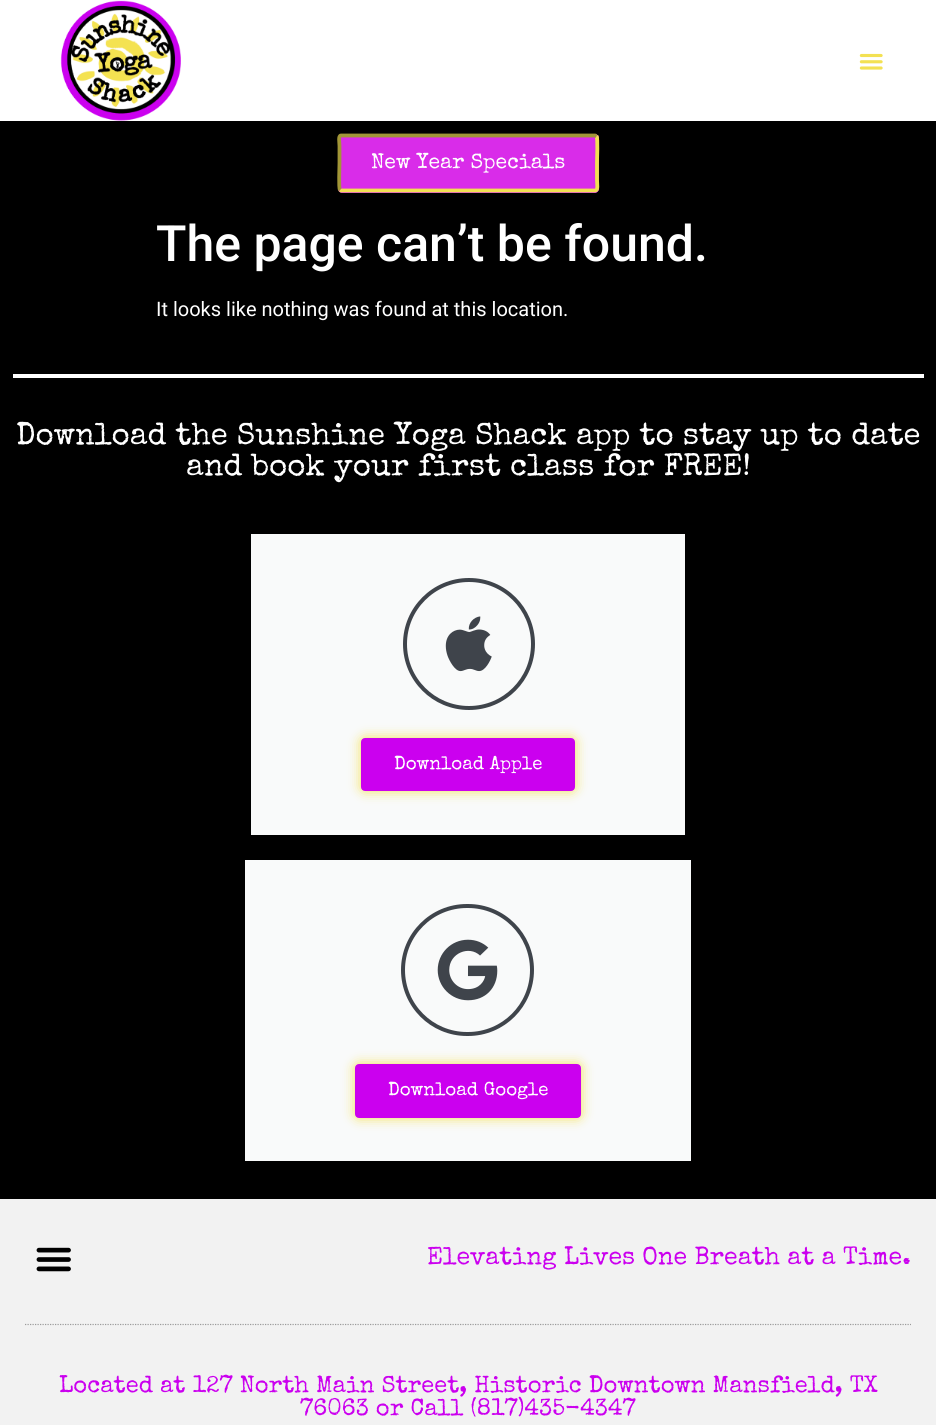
import math
import cairo

surface = cairo.ImageSurface(cairo.Format.RGB24, 936, 1425)
ctx = cairo.Context(surface)
options = cairo.FontOptions()
options.set_hint_metrics(cairo.HintMetrics.OFF)
options.set_hint_style(cairo.HintStyle.NONE)
ctx.set_font_options(options)
ctx.set_miter_limit(4)


def ink(r, g, b):
    ctx.set_source_rgb(r / 255, g / 255, b / 255)


def write(x, y, s, family, size, color, bold=False, italic=False):
    ctx.select_font_face(family, cairo.FontSlant.ITALIC if italic else cairo.FontSlant.NORMAL, cairo.FontWeight.BOLD if bold else cairo.FontWeight.NORMAL)
    ctx.set_font_size(size)
    ink(*color)
    ctx.move_to(x, y)
    ctx.show_text(s)


def block(x, y, w, h, *color):
    ink(*color)
    ctx.rectangle(x, y, w, h)
    ctx.fill()


def round_path(x, y, w, h, r):
    ctx.new_sub_path()
    for i, (u, v) in enumerate([(x + w - r, y + h - r), (x + r, y + h - r), (x + r, y + r), (x + w - r, y + r)]):
        ctx.arc(u, v, r, i * math.pi / 2, (i + 1) * math.pi / 2)
    ctx.close_path()


def blur_box(x, y, w, h, r, blur, alpha):
    ctx.push_group_with_content(cairo.Content.ALPHA)
    ctx.set_operator(cairo.Operator.SOURCE)
    for i in range(15, -16, -2):
        e = blur * i / 6
        if min(w, h) + 2 * e > 0:
            ctx.set_source_rgba(0, 0, 0, alpha * math.erfc((i - 1) / 8.5) / 2)
            round_path(x - e, y - e, w + 2 * e, h + 2 * e, max(0, min(r + e + blur * .6, min(w, h) / 2 + e)))
            ctx.fill()
    ctx.mask(ctx.pop_group())


def paste(path, x, y, w, h):
    ctx.save()
    ctx.set_source_surface(cairo.ImageSurface.create_from_png(path), x, y)
    ctx.rectangle(x, y, w, h)
    ctx.fill()
    ctx.restore()


s1 = dict(family="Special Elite", size=21.25, color=(255, 255, 255))
s2 = dict(family="Roboto Medium", size=50, color=(255, 255, 255))
s3 = dict(family="Roboto", size=20, color=(255, 255, 255))
s4 = dict(family="Special Elite", size=31.25, color=(255, 255, 255))
s5 = dict(family="Special Elite", size=18.75, color=(255, 255, 255))
s6 = dict(family="Special Elite", size=25, color=(203, 0, 239))
s7 = dict(family="Special Elite", size=23.75, color=(203, 0, 239))

ink(0, 0, 0)
ctx.paint()
block(0, 0, 936, 121, 255, 255, 255)
paste("pic1.png", 60, 0, 121, 121)
paste("pic2.png", 859, 53, 24, 17)
ink(217, 44, 233)
ctx.new_path()
ctx.move_to(342, 134)
ctx.line_to(595, 134)
ctx.curve_to(597, 134, 599, 136, 599, 138)
ctx.line_to(338, 138)
ctx.curve_to(338, 136, 340, 134, 342, 134)
ctx.close_path()
ctx.fill()
block(341, 138, 258, 51, 217, 44, 233)
ctx.new_path()
ctx.move_to(338, 189)
ctx.line_to(599, 189)
ctx.curve_to(599, 191, 597, 193, 595, 193)
ctx.line_to(342, 193)
ctx.curve_to(340, 193, 338, 191, 338, 189)
ctx.close_path()
ctx.fill()
ctx.new_path()
ctx.move_to(596.5, 136)
ctx.curve_to(598, 138, 597, 159.5, 597, 163)
ctx.line_to(597, 180)
ctx.curve_to(597, 184, 598.5, 190.5, 595, 190.5)
ctx.line_to(341, 190.5)
ctx.line_to(340, 190)
ink(243, 225, 83)
ctx.set_line_width(3.8)
ctx.stroke()
ctx.new_path()
ctx.move_to(340, 190)
ctx.curve_to(338.5, 188.5, 339.5, 166.5, 339.5, 163)
ctx.line_to(339.5, 146)
ctx.curve_to(339.5, 142.5, 338, 135.5, 341, 135.5)
ctx.line_to(595, 135.5)
ctx.line_to(596.5, 136)
ink(162, 150, 55)
ctx.stroke()
write(371, 168, "New Year Specials", **s1)
write(156, 261, "The page can’t be found.", **s2)
write(156, 316, "It looks like nothing was found at this location.", **s3)
block(13, 374, 911, 4, 255, 255, 255)
write(16, 444, "Download the Sunshine Yoga Shack app to stay up to date", **s4)
write(186, 475, "and book your first class for FREE!", **s4)
block(251, 534, 434, 301, 249, 250, 250)
ctx.new_path()
ctx.arc(469, 644, 64, 0, 2 * math.pi)
ink(63, 68, 75)
ctx.set_line_width(4)
ctx.stroke()
paste("pic3.png", 445, 616, 47, 56)
ink(243, 225, 83)
blur_box(361, 738, 214, 53, 4, 6, 1)
ink(203, 0, 239)
round_path(362.5, 739.5, 211, 50, 2.5)
ctx.fill_preserve()
ctx.set_line_width(3)
ctx.stroke()
write(394, 769, "Download Apple", **s5)
block(245, 860, 446, 301, 249, 250, 250)
round_path(403, 906, 129, 128, 64)
ink(63, 68, 75)
ctx.set_line_width(4)
ctx.stroke()
paste("pic4.png", 437, 939, 61, 62)
ink(243, 225, 83)
blur_box(355, 1064, 226, 54, 4, 6, 1)
ink(203, 0, 239)
round_path(356.5, 1065.5, 223, 51, 2.5)
ctx.fill_preserve()
ctx.set_line_width(3)
ctx.stroke()
write(388, 1095, "Download Google", **s5)
block(0, 1199, 936, 226, 242, 242, 242)
ctx.new_path()
ctx.move_to(25, 1324.5)
ctx.line_to(911, 1324.5)
ink(155, 155, 155)
ctx.set_line_width(1.2)
ctx.set_dash([1.25, 1.25])
ctx.stroke()
paste("pic5.png", 36, 1247, 35, 25)
write(427, 1264, "Elevating Lives One Breath at a Time.", **s6)
write(59, 1392, "Located at 127 North Main Street, Historic Downtown Mansfield, TX", **s7)
write(300, 1415, "76063 or Call (817)435-4347", **s7)
surface.write_to_png("screenshot.png")
